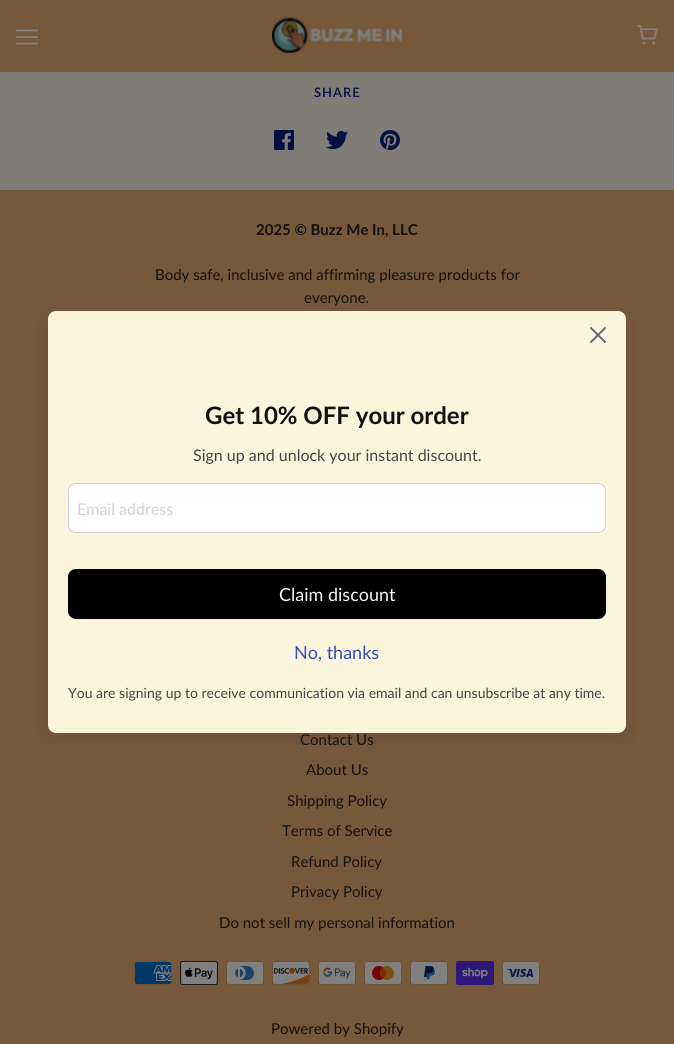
import math
import cairo

surface = cairo.ImageSurface(cairo.Format.RGB24, 674, 1044)
ctx = cairo.Context(surface)
options = cairo.FontOptions()
options.set_hint_metrics(cairo.HintMetrics.OFF)
options.set_hint_style(cairo.HintStyle.NONE)
ctx.set_font_options(options)
ctx.set_miter_limit(4)


def ink(r, g, b):
    ctx.set_source_rgb(r / 255, g / 255, b / 255)


def write(x, y, s, family, size, color, bold=False, italic=False):
    ctx.select_font_face(family, cairo.FontSlant.ITALIC if italic else cairo.FontSlant.NORMAL, cairo.FontWeight.BOLD if bold else cairo.FontWeight.NORMAL)
    ctx.set_font_size(size)
    ink(*color)
    ctx.move_to(x, y)
    ctx.show_text(s)


def write_spaced(x, y, s, letter, word):
    ctx.move_to(x, y)
    for ch in s:
        ctx.show_text(ch)
        ctx.rel_move_to(letter + word * (ch == ' '), 0)


def block(x, y, w, h, *color):
    ink(*color)
    ctx.rectangle(x, y, w, h)
    ctx.fill()


def round_path(x, y, w, h, r):
    ctx.new_sub_path()
    for i, (u, v) in enumerate([(x + w - r, y + h - r), (x + r, y + h - r), (x + r, y + r), (x + w - r, y + r)]):
        ctx.arc(u, v, r, i * math.pi / 2, (i + 1) * math.pi / 2)
    ctx.close_path()


def blur_box(x, y, w, h, r, blur, alpha):
    ctx.push_group_with_content(cairo.Content.ALPHA)
    ctx.set_operator(cairo.Operator.SOURCE)
    for i in range(15, -16, -2):
        e = blur * i / 6
        if min(w, h) + 2 * e > 0:
            ctx.set_source_rgba(0, 0, 0, alpha * math.erfc((i - 1) / 8.5) / 2)
            round_path(x - e, y - e, w + 2 * e, h + 2 * e, max(0, min(r + e + blur * .6, min(w, h) / 2 + e)))
            ctx.fill()
    ctx.mask(ctx.pop_group())


def paste(path, x, y, w, h):
    ctx.save()
    ctx.set_source_surface(cairo.ImageSurface.create_from_png(path), x, y)
    ctx.rectangle(x, y, w, h)
    ctx.fill()
    ctx.restore()


s1 = dict(family="Lato", size=15, color=(17, 17, 17), bold=True)
s2 = dict(family="Lato", size=15, color=(17, 17, 17))
s3 = dict(family="Lato", size=24, color=(17, 17, 17), bold=True)
s4 = dict(family="Lato", size=16, color=(69, 69, 69))
s5 = dict(family="Lato", size=16, color=(209, 209, 219))
s6 = dict(family="Lato", size=18, color=(246, 246, 246))
s7 = dict(family="Lato", size=18, color=(51, 79, 180))
s8 = dict(family="Lato", size=14, color=(69, 69, 69))

ink(128, 125, 121)
ctx.paint()
block(0, 0, 674, 71, 118, 88, 59)
block(0, 71, 674, 1, 119, 91, 64)
paste("pic1.png", 16, 29, 22, 16)
paste("pic2.png", 272, 17, 130, 36)
paste("pic3.png", 637, 25, 21, 20)
ctx.select_font_face("Lato SemiBold")
ctx.set_font_size(13)
ink(4, 15, 66)
write_spaced(314, 97, "SHARE", 1, 0)
paste("pic4.png", 274, 130, 20, 20)
paste("pic5.png", 326, 130, 22, 20)
paste("pic6.png", 380, 130, 20, 20)
block(0, 190, 674, 854, 118, 88, 59)
write(256, 235, "2025 © Buzz Me In, LLC", **s1)
write(155, 280, "Body safe, inclusive and affirming pleasure products for", **s2)
write(304, 303, "everyone.", **s2)
write(300, 745, "Contact Us", **s2)
write(306, 775, "About Us", **s2)
write(287, 806, "Shipping Policy", **s2)
write(282, 836, "Terms of Service", **s2)
write(291, 867, "Refund Policy", **s2)
write(291, 897, "Privacy Policy", **s2)
write(219, 928, "Do not sell my personal information", **s2)
paste("pic7.png", 134, 961, 38, 24)
paste("pic8.png", 180, 961, 38, 24)
paste("pic9.png", 226, 961, 38, 24)
paste("pic10.png", 272, 961, 38, 24)
paste("pic11.png", 318, 961, 38, 24)
paste("pic12.png", 364, 961, 38, 24)
paste("pic13.png", 410, 961, 38, 24)
paste("pic14.png", 456, 961, 38, 24)
paste("pic15.png", 502, 961, 38, 24)
write(271, 1034, "Powered by Shopify", **s2)
ctx.save()
ctx.rectangle(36, 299, 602, 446)
ctx.clip()
ink(18, 17, 39)
blur_box(48, 319, 578, 422, 8, 10, 0.1)
ctx.restore()
ink(252, 244, 220)
round_path(48, 311, 578, 422, 8)
ctx.fill()
paste("pic16.png", 590, 327, 16, 16)
write(205, 424, "Get 10% OFF your order", **s3)
write(193, 461, "Sign up and unlock your instant discount.", **s4)
ink(255, 255, 255)
round_path(68.5, 483.5, 537, 49, 7.5)
ctx.fill_preserve()
ink(209, 209, 219)
ctx.set_line_width(1)
ctx.stroke()
write(77, 515, "Email address", **s5)
ink(0, 0, 0)
round_path(68, 569, 538, 50, 8)
ctx.fill()
write(279, 601, "Claim discount", **s6)
write(294, 659, "No, thanks", **s7)
write(68, 698, "You are signing up to receive communication via email and can unsubscribe at any time.", **s8)
surface.write_to_png("screenshot.png")
